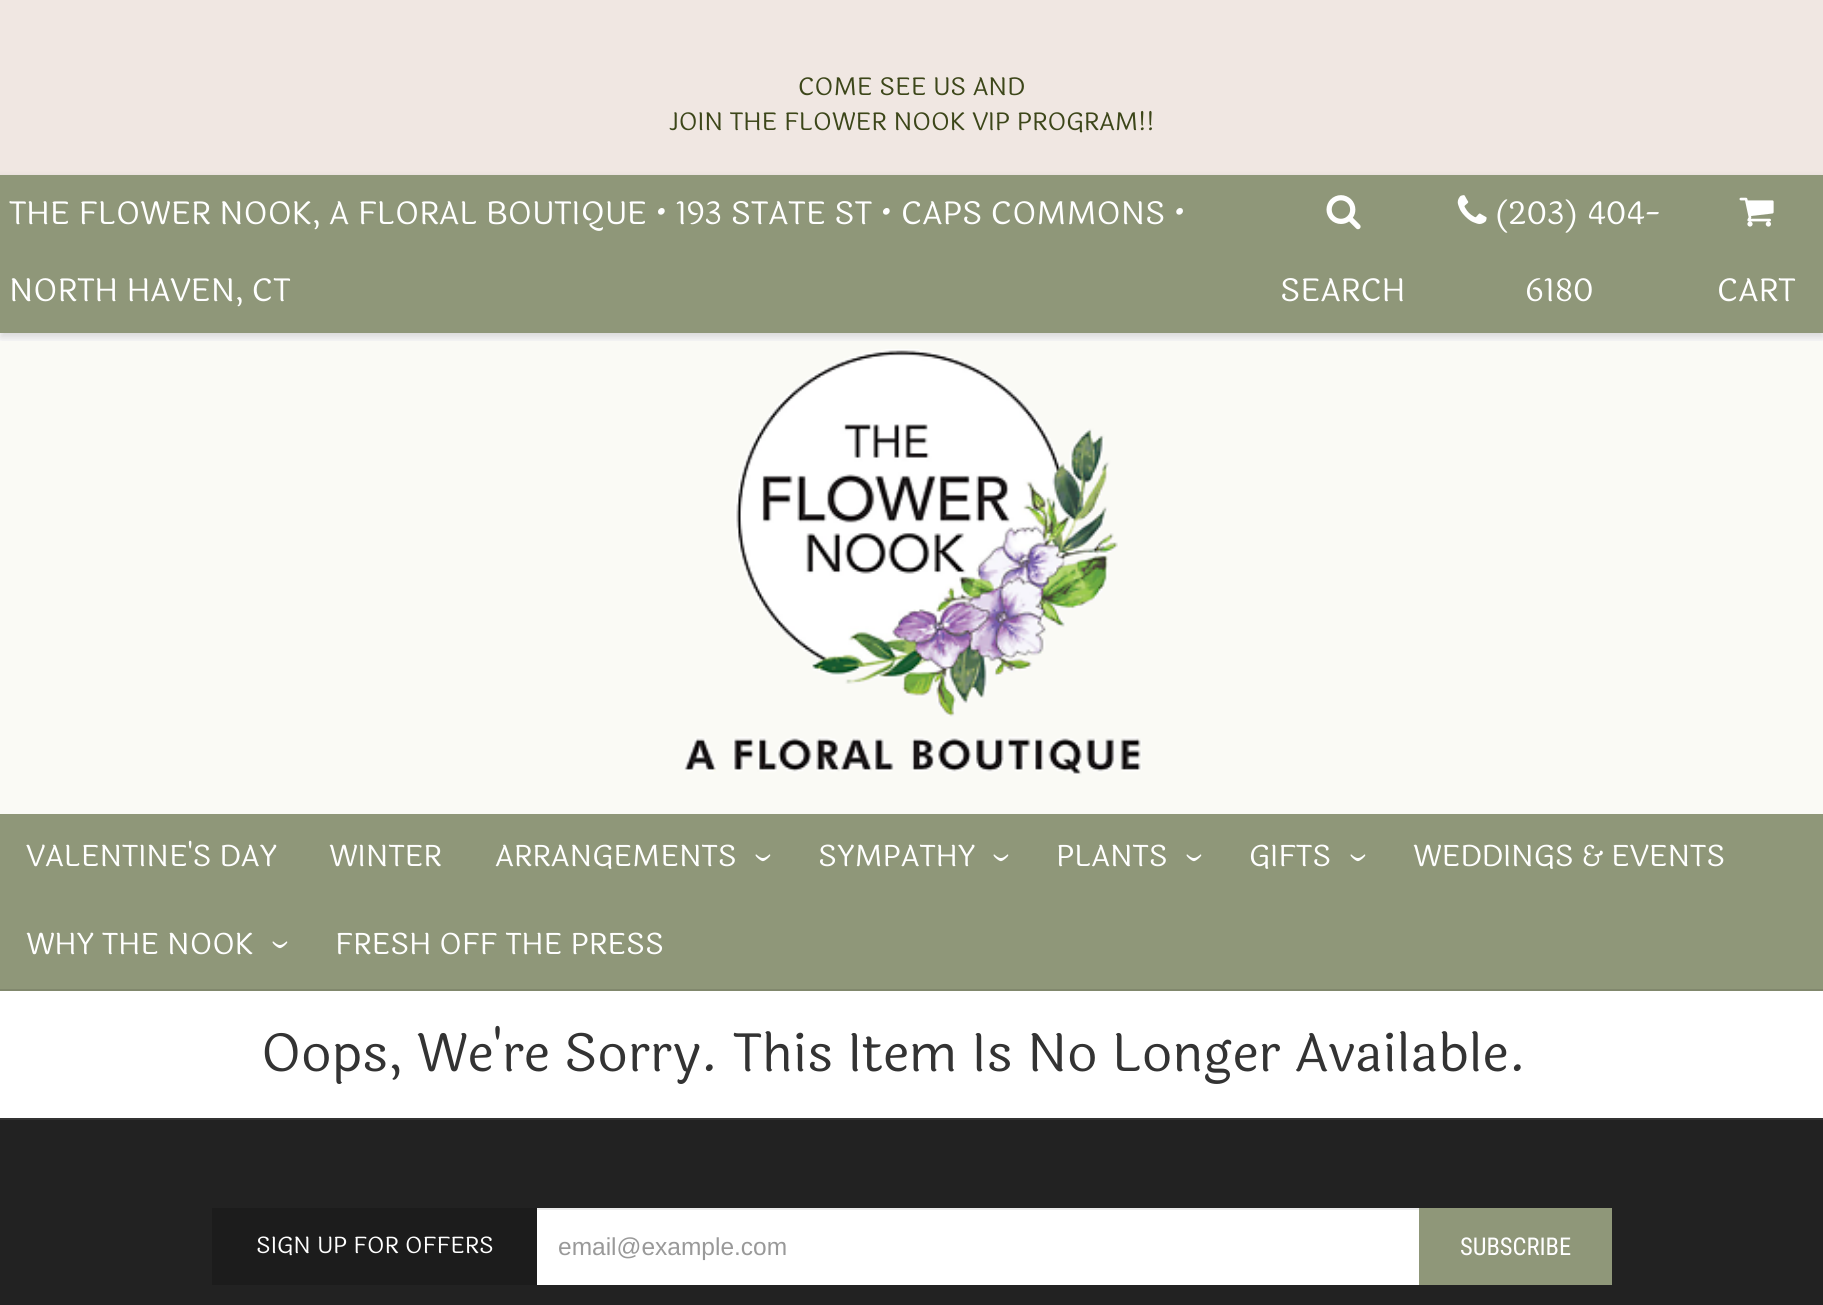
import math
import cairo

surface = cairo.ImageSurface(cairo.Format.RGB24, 1823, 1305)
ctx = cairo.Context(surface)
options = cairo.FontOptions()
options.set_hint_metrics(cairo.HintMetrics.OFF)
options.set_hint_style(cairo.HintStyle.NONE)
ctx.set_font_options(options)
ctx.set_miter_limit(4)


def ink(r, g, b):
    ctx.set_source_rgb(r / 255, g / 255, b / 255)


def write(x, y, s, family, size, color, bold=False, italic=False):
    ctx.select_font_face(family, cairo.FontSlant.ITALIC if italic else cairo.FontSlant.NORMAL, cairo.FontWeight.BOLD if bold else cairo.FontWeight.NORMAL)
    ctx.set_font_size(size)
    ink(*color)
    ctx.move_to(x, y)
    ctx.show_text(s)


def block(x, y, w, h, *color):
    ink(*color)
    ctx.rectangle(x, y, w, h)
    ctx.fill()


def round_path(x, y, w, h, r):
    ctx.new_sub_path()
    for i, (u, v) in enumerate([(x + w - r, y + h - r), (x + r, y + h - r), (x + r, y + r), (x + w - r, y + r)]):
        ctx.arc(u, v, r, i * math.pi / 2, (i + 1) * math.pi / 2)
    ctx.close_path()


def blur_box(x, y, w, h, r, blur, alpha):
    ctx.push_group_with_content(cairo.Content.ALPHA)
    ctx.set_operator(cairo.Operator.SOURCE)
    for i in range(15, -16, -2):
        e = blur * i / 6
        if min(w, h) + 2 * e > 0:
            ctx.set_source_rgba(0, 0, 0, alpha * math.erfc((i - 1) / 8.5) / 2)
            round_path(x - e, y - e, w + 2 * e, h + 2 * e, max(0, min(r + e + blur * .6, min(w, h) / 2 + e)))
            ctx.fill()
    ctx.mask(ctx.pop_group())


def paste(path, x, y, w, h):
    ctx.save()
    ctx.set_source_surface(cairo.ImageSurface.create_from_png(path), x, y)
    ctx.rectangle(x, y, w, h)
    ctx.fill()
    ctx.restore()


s1 = dict(family="Laila", size=24.5, color=(60, 70, 25))
s2 = dict(family="Laila", size=31.5, color=(255, 255, 255))
s3 = dict(family="Laila", size=29.4, color=(255, 255, 255))
s4 = dict(family="Laila", size=52.5, color=(51, 51, 51))
s5 = dict(family="Laila", size=22.75, color=(255, 255, 255))
s6 = dict(family="Liberation Sans", size=24.5, color=(153, 153, 153))
s7 = dict(family="Roboto Condensed", size=24.5, color=(255, 255, 255))

ink(255, 255, 255)
ctx.paint()
block(0, 0, 1823, 175, 240, 231, 226)
write(798, 95, "COME SEE US AND", **s1)
write(669, 130, "JOIN THE FLOWER NOOK VIP PROGRAM!!", **s1)
ink(0, 0, 0)
blur_box(0, 180, 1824, 158, 0, 5, 0.16)
block(0, 175, 1823, 158, 143, 151, 121)
write(9, 224, "THE FLOWER NOOK, A FLORAL BOUTIQUE • 193 STATE ST • CAPS COMMONS •", **s2)
write(9, 301, "NORTH HAVEN, CT", **s2)
paste("pic1.png", 1326, 195, 35, 35)
write(1280, 301, "SEARCH", **s2)
paste("pic2.png", 1457, 195, 30, 29)
write(1494, 224, "(203) 404-", **s2)
write(1525, 301, "6180", **s2)
paste("pic3.png", 1739, 197, 35, 30)
write(1717, 301, "CART", **s2)
block(0, 341, 1823, 473, 250, 250, 245)
paste("pic4.png", 683, 349, 459, 426)
block(0, 814, 1823, 175, 143, 151, 121)
block(0, 989, 1823, 2, 129, 136, 109)
write(26, 866, "VALENTINE'S DAY", **s3)
write(329, 866, "WINTER", **s3)
write(495, 866, "ARRANGEMENTS", **s3)
ctx.save()
ctx.translate(751, 852)
ctx.rotate(90 * math.pi / 180)
write(0, 0, "›", **s3)
ctx.restore()
write(818, 866, "SYMPATHY", **s3)
ctx.save()
ctx.translate(989, 852)
ctx.rotate(90 * math.pi / 180)
write(0, 0, "›", **s3)
ctx.restore()
write(1056, 866, "PLANTS", **s3)
ctx.save()
ctx.translate(1182, 852)
ctx.rotate(90 * math.pi / 180)
write(0, 0, "›", **s3)
ctx.restore()
write(1249, 866, "GIFTS", **s3)
ctx.save()
ctx.translate(1346, 852)
ctx.rotate(90 * math.pi / 180)
write(0, 0, "›", **s3)
ctx.restore()
write(1413, 866, "WEDDINGS & EVENTS", **s3)
write(26, 954, "WHY THE NOOK", **s3)
ctx.save()
ctx.translate(268, 939)
ctx.rotate(90 * math.pi / 180)
write(0, 0, "›", **s3)
ctx.restore()
write(335, 954, "FRESH OFF THE PRESS", **s3)
write(261, 1071, "Oops, We're Sorry. This Item Is No Longer Available.", **s4)
block(0, 1120, 1823, 185, 34, 34, 34)
block(0, 1118, 1823, 2, 51, 51, 51)
block(212, 1208, 325, 77, 28, 28, 28)
write(256, 1253, "SIGN UP FOR OFFERS", **s5)
block(537, 1210, 882, 75, 255, 255, 255)
block(537, 1208, 882, 2, 236, 236, 236)
write(558, 1255, "email@example.com", **s6)
block(1419, 1208, 193, 77, 143, 151, 121)
write(1460, 1255, "SUBSCRIBE", **s7)
surface.write_to_png("screenshot.png")
